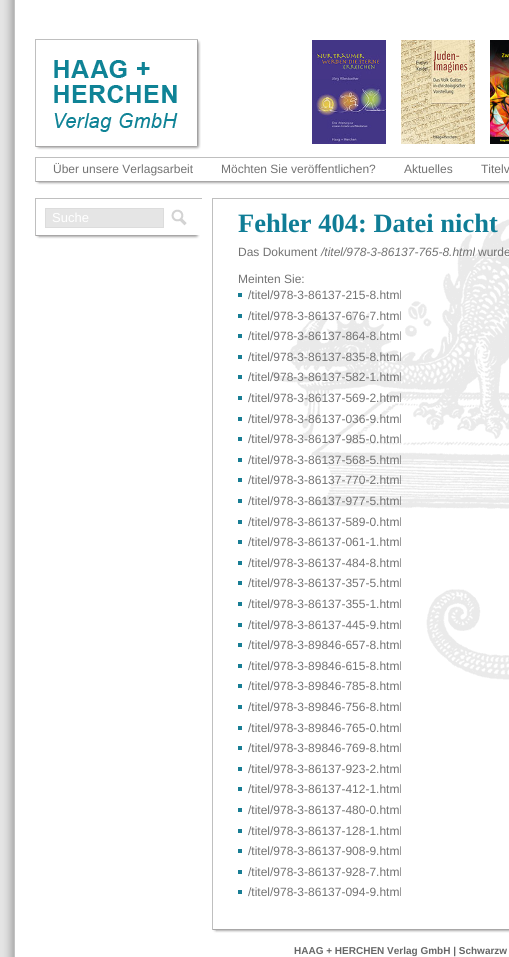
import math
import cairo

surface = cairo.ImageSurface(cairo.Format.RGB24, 509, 957)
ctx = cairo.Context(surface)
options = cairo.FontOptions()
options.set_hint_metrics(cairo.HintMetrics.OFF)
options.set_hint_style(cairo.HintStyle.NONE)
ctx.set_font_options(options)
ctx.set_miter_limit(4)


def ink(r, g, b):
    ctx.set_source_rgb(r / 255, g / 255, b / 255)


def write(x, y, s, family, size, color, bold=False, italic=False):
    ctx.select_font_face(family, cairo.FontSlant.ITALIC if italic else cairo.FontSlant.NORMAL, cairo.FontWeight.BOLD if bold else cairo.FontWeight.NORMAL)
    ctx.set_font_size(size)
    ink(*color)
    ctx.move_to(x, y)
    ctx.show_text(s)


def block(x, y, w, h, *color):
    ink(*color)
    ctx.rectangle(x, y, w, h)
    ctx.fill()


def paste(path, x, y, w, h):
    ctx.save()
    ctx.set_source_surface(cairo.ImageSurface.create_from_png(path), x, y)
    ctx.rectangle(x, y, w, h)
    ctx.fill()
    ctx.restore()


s1 = dict(family="Liberation Sans", size=12, color=(114, 114, 114))
s2 = dict(family="Liberation Sans", size=13, color=(255, 255, 255))
s3 = dict(family="Liberation Serif", size=26.5, color=(15, 125, 150), bold=True)
s4 = dict(family="Liberation Sans", size=12, color=(114, 114, 114), italic=True)
s5 = dict(family="Liberation Sans", size=10, color=(102, 102, 102), bold=True)

ink(255, 255, 255)
ctx.paint()
paste("pic1.png", 0, 0, 15, 957)
paste("pic2.png", 35, 39, 166, 111)
paste("pic3.png", 312, 40, 74, 104)
paste("pic4.png", 401, 40, 74, 104)
paste("pic5.png", 490, 40, 19, 104)
block(35, 157, 474, 1, 191, 191, 191)
block(35, 157, 1, 29, 191, 191, 191)
write(53, 173, "Über unsere Verlagsarbeit", **s1)
write(221, 173, "Möchten Sie veröffentlichen?", **s1)
write(404, 173, "Aktuelles", **s1)
write(481, 173, "Titelv", **s1)
paste("pic6.png", 36, 181, 473, 4)
paste("pic7.png", 35, 182, 4, 4)
block(35, 198, 167, 1, 191, 191, 191)
block(35, 198, 1, 42, 191, 191, 191)
ink(229, 229, 229)
ctx.rectangle(45.5, 208.5, 118, 19)
ctx.fill_preserve()
ink(220, 220, 220)
ctx.set_line_width(1)
ctx.stroke()
write(52, 222, "Suche", **s2)
paste("pic8.png", 171, 209, 16, 17)
paste("pic9.png", 36, 235, 164, 4)
paste("pic7.png", 35, 236, 4, 4)
block(212, 198, 297, 1, 191, 191, 191)
block(212, 198, 1, 736, 191, 191, 191)
paste("pic10.png", 272, 219, 237, 461)
write(238, 232, "Fehler 404: Datei nicht", **s3)
write(238, 256, "Das Dokument", **s1)
write(321, 256, "/titel/978-3-86137-765-8.html", **s4)
write(478, 256, "wurde", **s1)
write(238, 283, "Meinten Sie:", **s1)
block(238, 293, 4, 4, 24, 125, 148)
write(248, 299, "/titel/978-3-86137-215-8.html", **s1)
block(238, 314, 4, 4, 24, 125, 148)
write(248, 320, "/titel/978-3-86137-676-7.html", **s1)
block(238, 334, 4, 4, 24, 125, 148)
write(248, 340, "/titel/978-3-86137-864-8.html", **s1)
block(238, 355, 4, 4, 24, 125, 148)
write(248, 361, "/titel/978-3-86137-835-8.html", **s1)
block(238, 375, 4, 4, 24, 125, 148)
write(248, 381, "/titel/978-3-86137-582-1.html", **s1)
block(238, 396, 4, 4, 24, 125, 148)
write(248, 402, "/titel/978-3-86137-569-2.html", **s1)
block(238, 417, 4, 4, 24, 125, 148)
write(248, 423, "/titel/978-3-86137-036-9.html", **s1)
block(238, 437, 4, 4, 24, 125, 148)
write(248, 443, "/titel/978-3-86137-985-0.html", **s1)
block(238, 458, 4, 4, 24, 125, 148)
write(248, 464, "/titel/978-3-86137-568-5.html", **s1)
block(238, 478, 4, 4, 24, 125, 148)
write(248, 484, "/titel/978-3-86137-770-2.html", **s1)
block(238, 499, 4, 4, 24, 125, 148)
write(248, 505, "/titel/978-3-86137-977-5.html", **s1)
block(238, 520, 4, 4, 24, 125, 148)
write(248, 526, "/titel/978-3-86137-589-0.html", **s1)
block(238, 540, 4, 4, 24, 125, 148)
write(248, 546, "/titel/978-3-86137-061-1.html", **s1)
block(238, 561, 4, 4, 24, 125, 148)
write(248, 567, "/titel/978-3-86137-484-8.html", **s1)
block(238, 581, 4, 4, 24, 125, 148)
write(248, 587, "/titel/978-3-86137-357-5.html", **s1)
block(238, 602, 4, 4, 24, 125, 148)
write(248, 608, "/titel/978-3-86137-355-1.html", **s1)
block(238, 623, 4, 4, 24, 125, 148)
write(248, 629, "/titel/978-3-86137-445-9.html", **s1)
block(238, 643, 4, 4, 24, 125, 148)
write(248, 649, "/titel/978-3-89846-657-8.html", **s1)
block(238, 664, 4, 4, 24, 125, 148)
write(248, 670, "/titel/978-3-89846-615-8.html", **s1)
block(238, 684, 4, 4, 24, 125, 148)
write(248, 690, "/titel/978-3-89846-785-8.html", **s1)
block(238, 705, 4, 4, 24, 125, 148)
write(248, 711, "/titel/978-3-89846-756-8.html", **s1)
block(238, 726, 4, 4, 24, 125, 148)
write(248, 732, "/titel/978-3-89846-765-0.html", **s1)
block(238, 746, 4, 4, 24, 125, 148)
write(248, 752, "/titel/978-3-89846-769-8.html", **s1)
block(238, 767, 4, 4, 24, 125, 148)
write(248, 773, "/titel/978-3-86137-923-2.html", **s1)
block(238, 787, 4, 4, 24, 125, 148)
write(248, 793, "/titel/978-3-86137-412-1.html", **s1)
block(238, 808, 4, 4, 24, 125, 148)
write(248, 814, "/titel/978-3-86137-480-0.html", **s1)
block(238, 829, 4, 4, 24, 125, 148)
write(248, 835, "/titel/978-3-86137-128-1.html", **s1)
block(238, 849, 4, 4, 24, 125, 148)
write(248, 855, "/titel/978-3-86137-908-9.html", **s1)
block(238, 870, 4, 4, 24, 125, 148)
write(248, 876, "/titel/978-3-86137-928-7.html", **s1)
block(238, 890, 4, 4, 24, 125, 148)
write(248, 896, "/titel/978-3-86137-094-9.html", **s1)
paste("pic11.png", 213, 929, 296, 4)
paste("pic7.png", 212, 930, 4, 4)
write(294, 954, "HAAG + HERCHEN Verlag GmbH | Schwarzw", **s5)
surface.write_to_png("screenshot.png")
